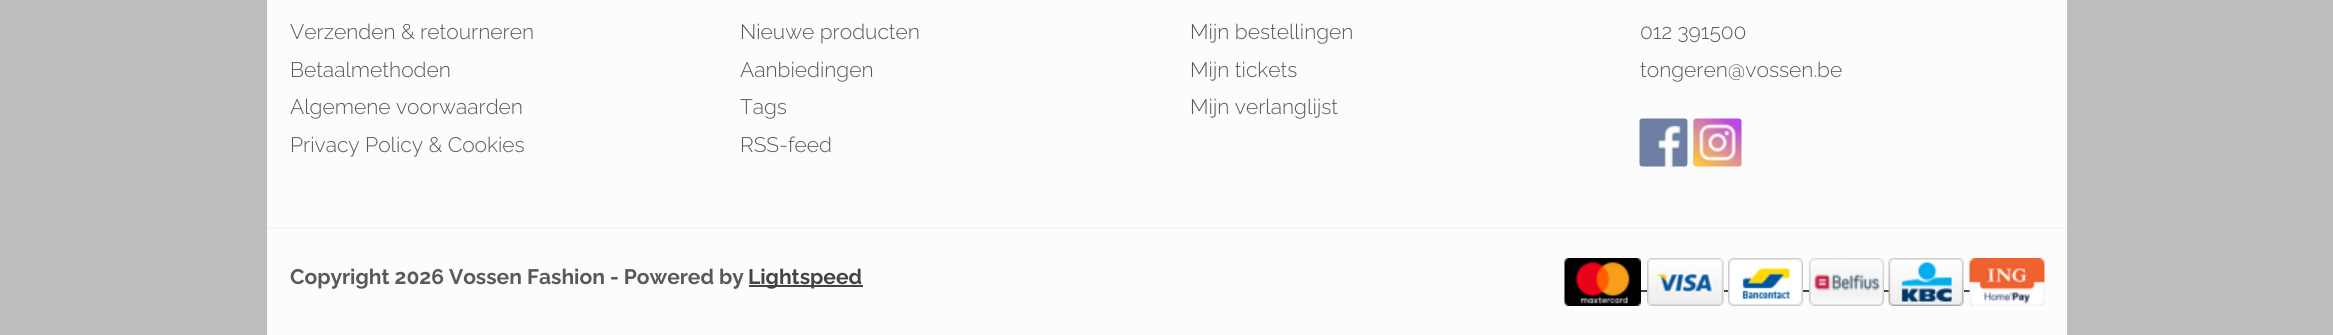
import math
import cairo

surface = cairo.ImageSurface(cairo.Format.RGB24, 2333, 335)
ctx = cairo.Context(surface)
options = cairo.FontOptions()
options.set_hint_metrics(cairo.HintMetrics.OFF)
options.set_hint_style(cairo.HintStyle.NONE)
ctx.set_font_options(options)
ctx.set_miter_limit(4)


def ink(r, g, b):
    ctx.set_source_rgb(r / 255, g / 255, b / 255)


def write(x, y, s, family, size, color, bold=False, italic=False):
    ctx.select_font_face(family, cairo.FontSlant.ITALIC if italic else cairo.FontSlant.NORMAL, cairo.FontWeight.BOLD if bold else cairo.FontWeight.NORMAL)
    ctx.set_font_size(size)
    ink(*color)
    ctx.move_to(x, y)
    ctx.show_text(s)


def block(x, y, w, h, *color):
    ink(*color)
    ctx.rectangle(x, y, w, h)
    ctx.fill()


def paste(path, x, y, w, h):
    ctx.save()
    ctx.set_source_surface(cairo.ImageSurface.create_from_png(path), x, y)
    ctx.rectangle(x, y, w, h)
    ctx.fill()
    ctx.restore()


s1 = dict(family="Raleway Light", size=21, color=(89, 89, 89))
s2 = dict(family="Raleway", size=21, color=(89, 89, 89), bold=True)
s3 = dict(family="Raleway", size=21, color=(68, 68, 68), bold=True)

ink(189, 189, 189)
ctx.paint()
block(267, 0, 1800, 335, 252, 252, 252)
write(290, 39, "Verzenden & retourneren", **s1)
write(290, 77, "Betaalmethoden", **s1)
write(290, 114, "Algemene voorwaarden", **s1)
write(290, 152, "Privacy Policy & Cookies", **s1)
write(740, 39, "Nieuwe producten", **s1)
write(740, 77, "Aanbiedingen", **s1)
write(740, 114, "Tags", **s1)
write(740, 152, "RSS-feed", **s1)
write(1190, 39, "Mijn bestellingen", **s1)
write(1190, 77, "Mijn tickets", **s1)
write(1190, 114, "Mijn verlanglijst", **s1)
write(1640, 39, "012 391500", **s1)
write(1640, 77, "tongeren@vossen.be", **s1)
paste("pic1.png", 1639, 118, 49, 49)
paste("pic2.png", 1693, 118, 49, 49)
block(267, 227, 1800, 2, 247, 247, 247)
write(290, 284, "Copyright 2026 Vossen Fashion - Powered by", **s2)
block(749, 285, 114, 2, 68, 68, 68)
write(748, 284, "Lightspeed", **s3)
paste("pic3.png", 1564, 258, 77, 48)
block(1641, 290, 6, 2, 68, 68, 68)
paste("pic4.png", 1647, 258, 77, 48)
block(1724, 290, 5, 2, 68, 68, 68)
paste("pic5.png", 1728, 258, 75, 48)
block(1803, 290, 6, 2, 68, 68, 68)
paste("pic6.png", 1809, 258, 75, 48)
block(1884, 290, 5, 2, 68, 68, 68)
paste("pic7.png", 1888, 258, 76, 48)
block(1964, 290, 6, 2, 68, 68, 68)
paste("pic8.png", 1969, 258, 76, 48)
surface.write_to_png("screenshot.png")
